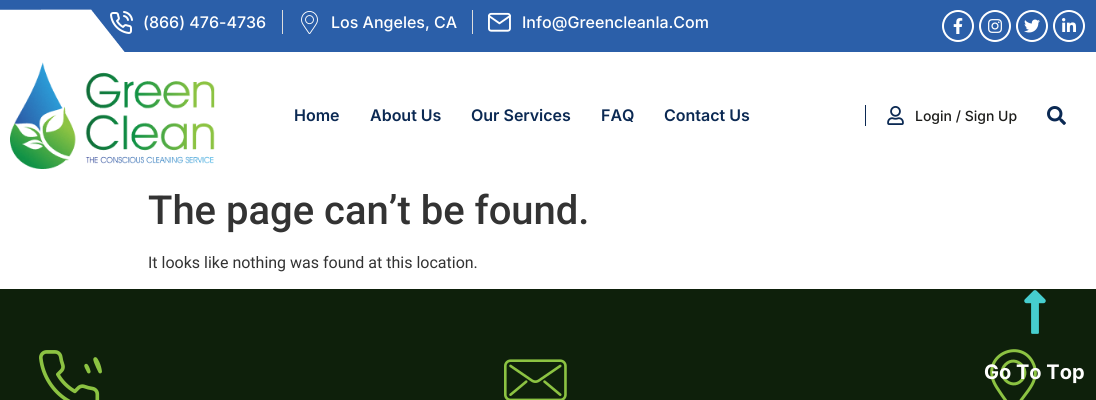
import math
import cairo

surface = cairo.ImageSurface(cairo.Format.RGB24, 1096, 400)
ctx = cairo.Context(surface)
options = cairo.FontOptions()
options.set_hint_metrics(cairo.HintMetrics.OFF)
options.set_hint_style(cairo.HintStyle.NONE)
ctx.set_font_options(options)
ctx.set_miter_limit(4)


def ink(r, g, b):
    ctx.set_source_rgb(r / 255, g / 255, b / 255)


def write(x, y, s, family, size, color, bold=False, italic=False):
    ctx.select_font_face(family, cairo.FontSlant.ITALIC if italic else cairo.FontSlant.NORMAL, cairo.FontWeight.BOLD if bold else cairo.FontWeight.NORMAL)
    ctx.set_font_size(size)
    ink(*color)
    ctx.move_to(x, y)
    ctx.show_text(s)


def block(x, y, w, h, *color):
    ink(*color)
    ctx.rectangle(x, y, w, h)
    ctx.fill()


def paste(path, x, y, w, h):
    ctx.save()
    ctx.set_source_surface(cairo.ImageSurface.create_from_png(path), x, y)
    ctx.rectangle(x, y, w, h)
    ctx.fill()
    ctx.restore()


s1 = dict(family="Inter Medium", size=16, color=(255, 255, 255))
s2 = dict(family="Inter SemiBold", size=16, color=(11, 41, 83))
s3 = dict(family="Inter Medium", size=14, color=(29, 29, 27))
s4 = dict(family="Roboto Medium", size=40, color=(51, 51, 51))
s5 = dict(family="Roboto", size=16, color=(51, 51, 51))
s6 = dict(family="Inter", size=20, color=(255, 255, 255), bold=True)

ink(255, 255, 255)
ctx.paint()
paste("pic1.png", 0, 0, 1096, 52)
paste("pic2.png", 110, 11, 23, 23)
write(143, 28, "(866) 476-4736", **s1)
block(282, 10, 1, 24, 221, 221, 221)
paste("pic3.png", 301, 11, 17, 23)
write(331, 28, "Los Angeles, CA", **s1)
block(472, 10, 1, 24, 221, 221, 221)
paste("pic4.png", 488, 12, 23, 20)
write(522, 28, "Info@Greencleanla.Com", **s1)
ctx.new_path()
ctx.arc(958, 26, 15, 0, 2 * math.pi)
ctx.stroke()
paste("pic5.png", 953, 18, 10, 16)
ctx.arc(995, 26, 15, 0, 2 * math.pi)
ctx.stroke()
paste("pic6.png", 988, 19, 14, 14)
ctx.arc(1032, 26, 15, 0, 2 * math.pi)
ctx.stroke()
paste("pic7.png", 1024, 19, 16, 14)
ctx.arc(1069, 26, 15, 0, 2 * math.pi)
ctx.stroke()
paste("pic8.png", 1062, 18, 14, 14)
paste("pic9.png", 10, 62, 205, 107)
write(294, 121, "Home", **s2)
write(370, 121, "About Us", **s2)
write(471, 121, "Our Services", **s2)
write(601, 121, "FAQ", **s2)
write(664, 121, "Contact Us", **s2)
block(865, 105, 1, 21, 11, 41, 83)
paste("pic10.png", 887, 106, 17, 19)
write(915, 121, "Login / Sign Up", **s3)
paste("pic11.png", 1047, 106, 19, 19)
write(148, 224, "The page can’t be found.", **s4)
write(148, 268, "It looks like nothing was found at this location.", **s5)
block(0, 289, 1096, 111, 14, 32, 11)
paste("pic12.png", 39, 350, 63, 50)
paste("pic13.png", 504, 359, 63, 41)
ctx.new_path()
ctx.move_to(1012.5, 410)
ctx.curve_to(1014, 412, 1015.5, 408, 1016, 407.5)
ctx.line_to(1020.5, 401)
ctx.curve_to(1025, 394.5, 1032.5, 386.5, 1034.5, 378.5)
ctx.curve_to(1036, 373.5, 1035.5, 368, 1033, 363)
ctx.curve_to(1022, 339.5, 986, 352.5, 992.5, 378)
ctx.curve_to(994, 384.5, 999, 390.5, 1002.5, 396)
ctx.close_path()
ctx.move_to(1021.5, 380.5)
ctx.curve_to(1011, 391, 995, 375, 1005.5, 364.5)
ctx.curve_to(1016, 354, 1032, 370, 1021.5, 380.5)
ctx.close_path()
ink(140, 195, 66)
ctx.set_line_width(3)
ctx.stroke()
paste("pic14.png", 1024, 290, 22, 44)
write(984, 379, "Go To Top", **s6)
surface.write_to_png("screenshot.png")
